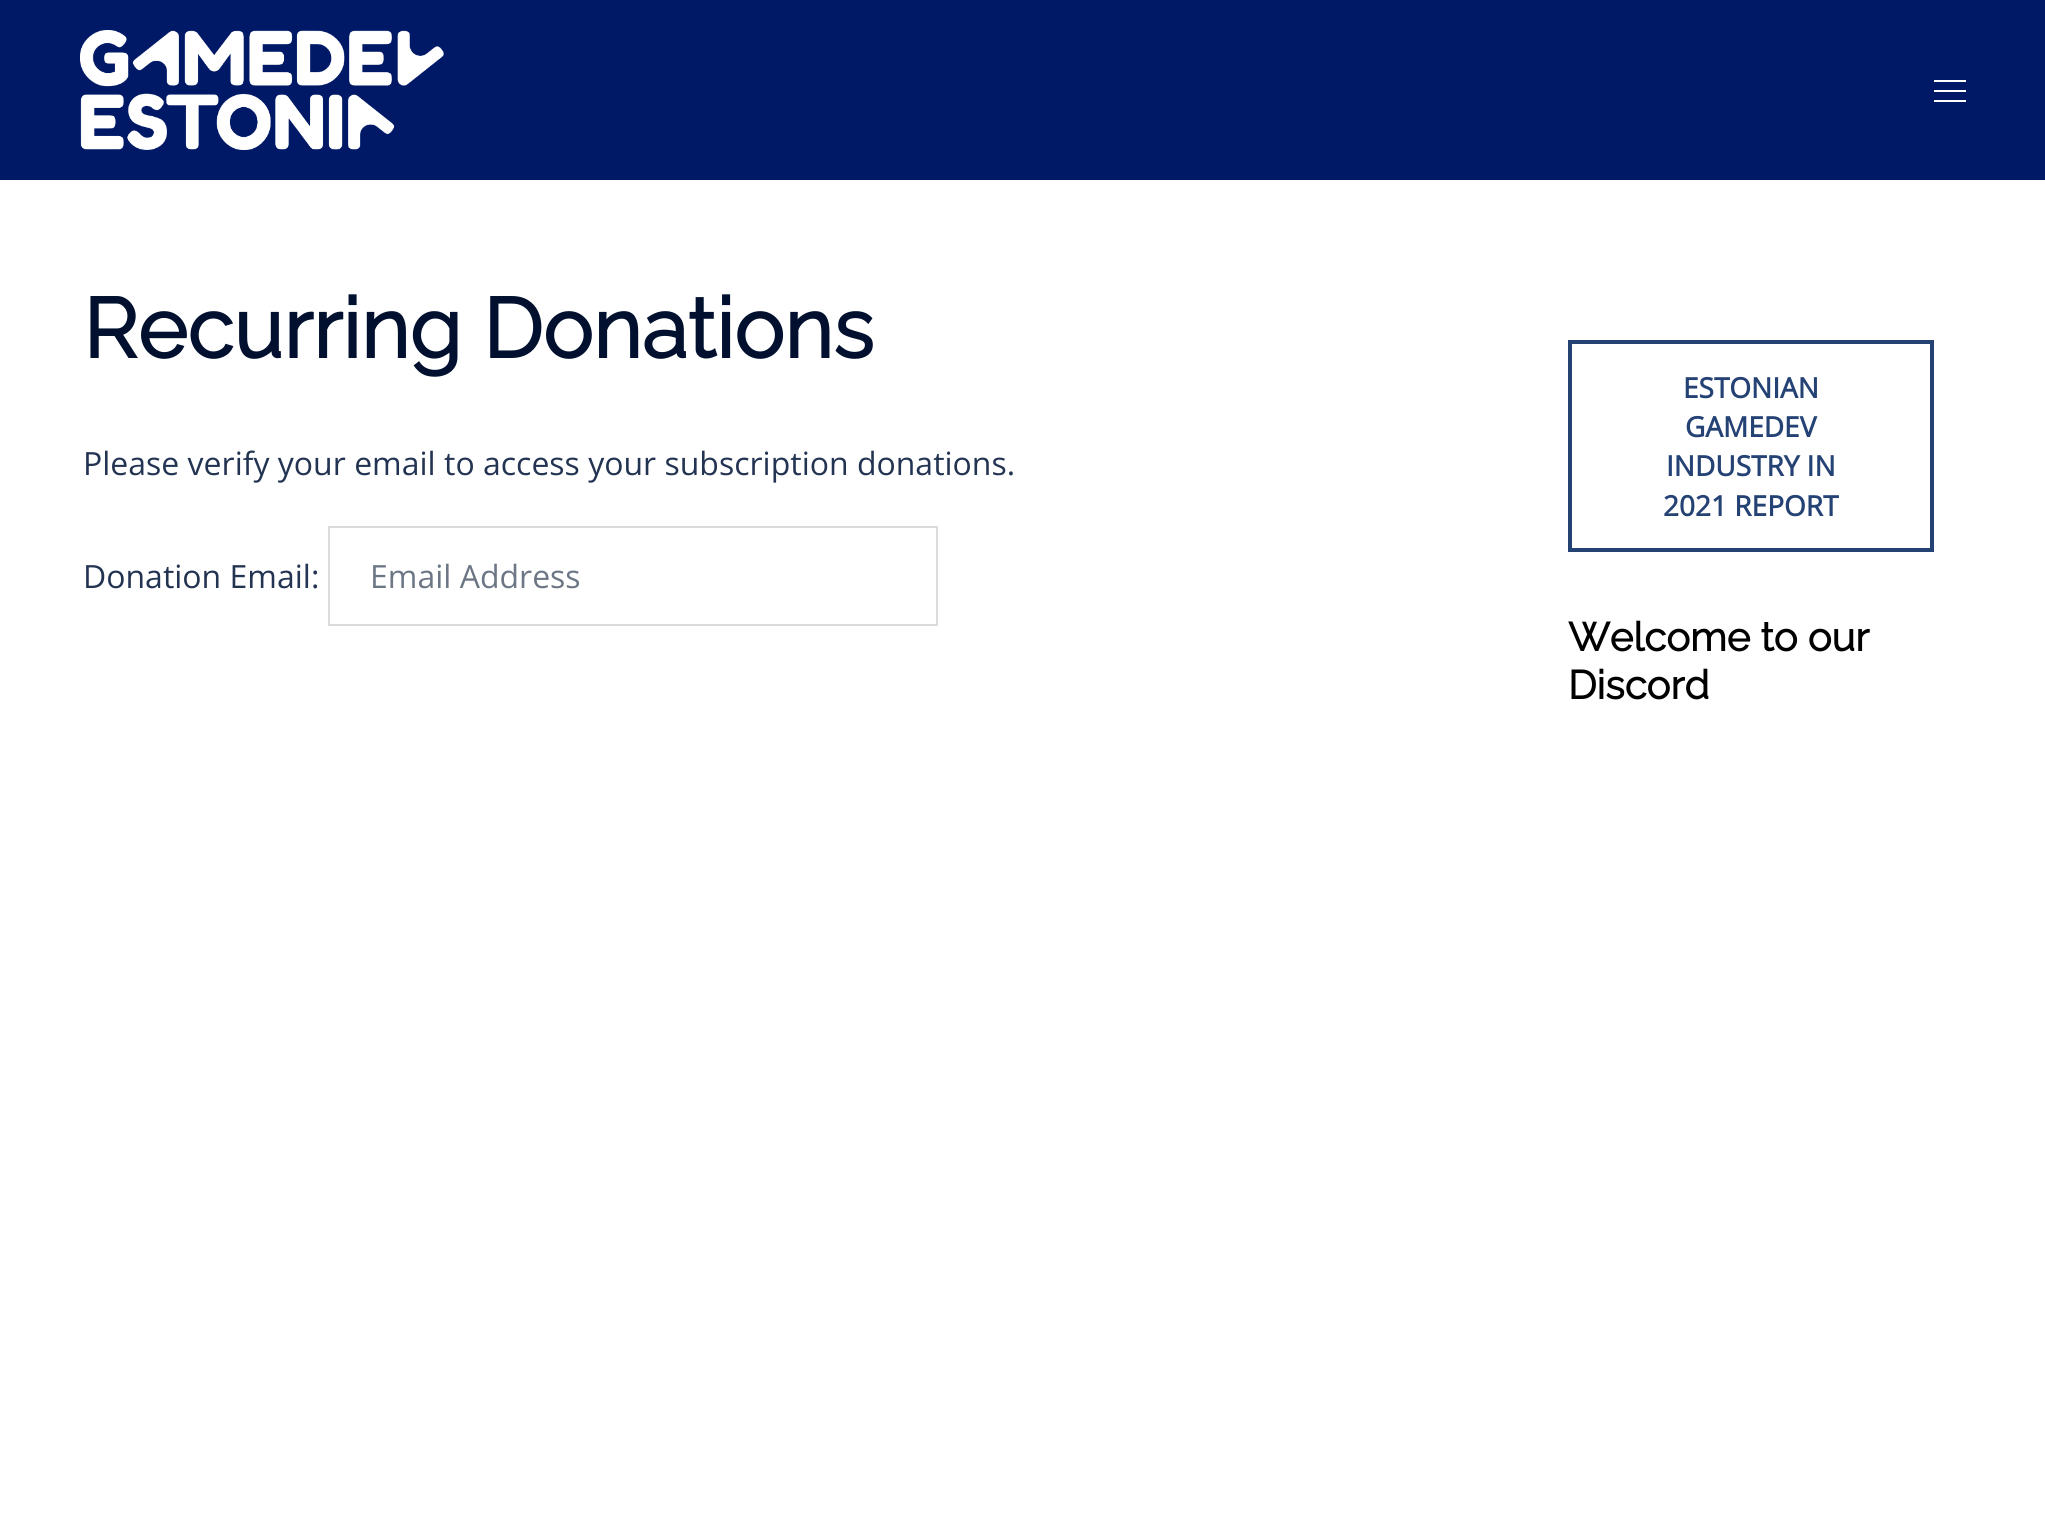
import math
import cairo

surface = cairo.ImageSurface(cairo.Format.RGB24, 2045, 1533)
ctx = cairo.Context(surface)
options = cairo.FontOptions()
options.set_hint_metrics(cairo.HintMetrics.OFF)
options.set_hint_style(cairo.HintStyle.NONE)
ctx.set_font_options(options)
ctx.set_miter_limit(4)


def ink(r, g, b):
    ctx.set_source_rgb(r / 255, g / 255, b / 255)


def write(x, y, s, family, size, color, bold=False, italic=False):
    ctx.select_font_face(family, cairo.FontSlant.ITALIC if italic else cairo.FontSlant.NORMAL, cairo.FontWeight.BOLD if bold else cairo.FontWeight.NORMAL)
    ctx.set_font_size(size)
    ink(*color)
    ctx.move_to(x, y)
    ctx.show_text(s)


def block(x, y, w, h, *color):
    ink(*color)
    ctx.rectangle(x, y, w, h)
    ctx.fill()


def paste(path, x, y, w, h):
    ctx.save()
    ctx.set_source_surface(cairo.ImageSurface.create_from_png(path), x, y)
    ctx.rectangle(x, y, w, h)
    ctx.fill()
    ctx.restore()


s1 = dict(family="Raleway", size=84, color=(0, 16, 46), bold=True)
s2 = dict(family="Open Sans", size=32, color=(35, 52, 82))
s3 = dict(family="Open Sans", size=32, color=(109, 118, 133))
s4 = dict(family="Open Sans", size=28, color=(37, 66, 117), bold=True)
s5 = dict(family="Raleway", size=40, color=(0, 0, 0), bold=True)

ink(255, 255, 255)
ctx.paint()
block(0, 0, 2045, 180, 0, 25, 102)
paste("pic1.png", 80, 30, 364, 120)
block(1934, 80, 32, 2, 255, 255, 255)
block(1934, 90, 32, 2, 255, 255, 255)
block(1934, 100, 32, 2, 255, 255, 255)
write(83, 358, "Recurring Donations", **s1)
write(83, 475, "Please verify your email to access your subscription donations.", **s2)
write(83, 588, "Donation Email:", **s2)
ctx.rectangle(329, 527, 608, 98)
ink(219, 219, 219)
ctx.stroke()
write(370, 588, "Email Address", **s3)
ctx.rectangle(1570, 342, 362, 208)
ink(37, 66, 117)
ctx.set_line_width(4)
ctx.stroke()
write(1683, 398, "ESTONIAN", **s4)
write(1685, 437, "GAMEDEV", **s4)
write(1666, 476, "INDUSTRY IN", **s4)
write(1663, 516, "2021 REPORT", **s4)
write(1568, 651, "Welcome to our", **s5)
write(1568, 699, "Discord", **s5)
surface.write_to_png("screenshot.png")
